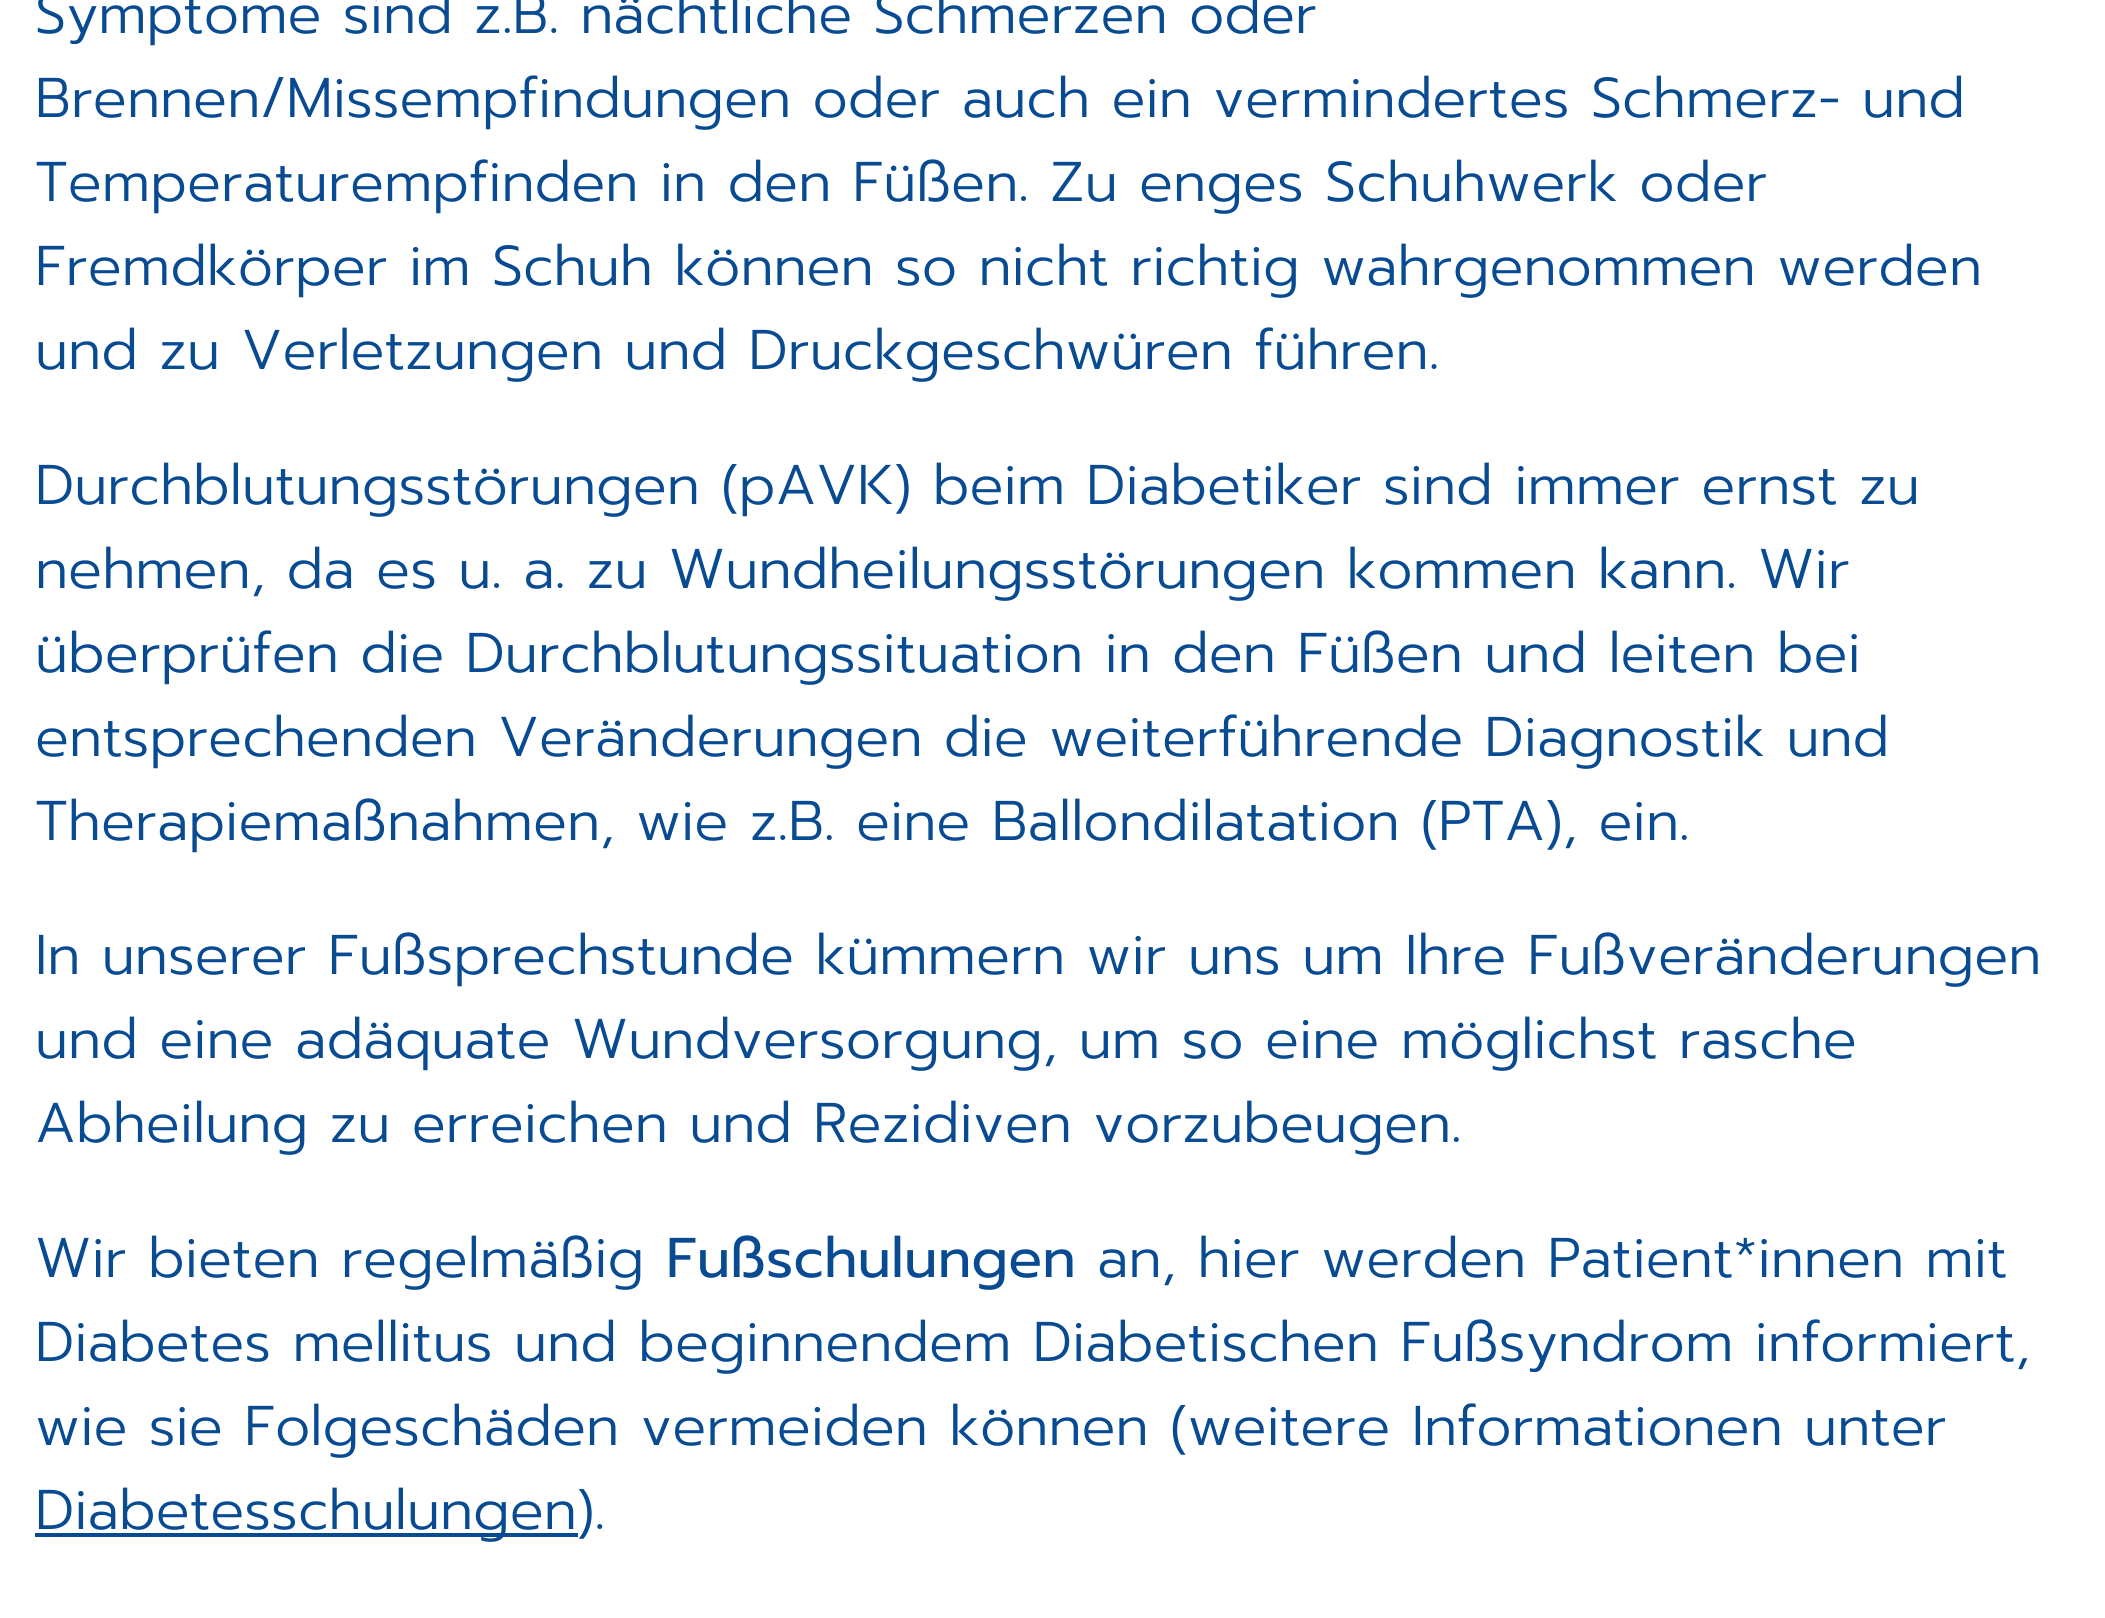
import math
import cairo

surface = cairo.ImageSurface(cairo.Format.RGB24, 2105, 1618)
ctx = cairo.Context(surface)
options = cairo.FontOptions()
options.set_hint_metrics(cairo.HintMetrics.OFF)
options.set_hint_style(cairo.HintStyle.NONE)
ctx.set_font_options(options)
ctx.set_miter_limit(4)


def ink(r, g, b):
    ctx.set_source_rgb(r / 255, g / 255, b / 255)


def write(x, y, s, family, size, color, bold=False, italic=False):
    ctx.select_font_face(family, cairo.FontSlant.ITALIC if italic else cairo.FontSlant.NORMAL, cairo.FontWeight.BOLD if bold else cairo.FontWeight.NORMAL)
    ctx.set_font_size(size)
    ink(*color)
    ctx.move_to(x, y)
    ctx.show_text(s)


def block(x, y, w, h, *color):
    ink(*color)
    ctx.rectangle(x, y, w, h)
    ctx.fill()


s1 = dict(family="Prompt Light", size=56, color=(8, 75, 146))
s2 = dict(family="Prompt", size=56, color=(8, 75, 146))

ink(255, 255, 255)
ctx.paint()
write(35, 33, "Symptome sind z.B. nächtliche Schmerzen oder", **s1)
write(35, 117, "Brennen/Missempfindungen oder auch ein vermindertes Schmerz- und", **s1)
write(35, 201, "Temperaturempfinden in den Füßen. Zu enges Schuhwerk oder", **s1)
write(35, 285, "Fremdkörper im Schuh können so nicht richtig wahrgenommen werden", **s1)
write(35, 369, "und zu Verletzungen und Druckgeschwüren führen.", **s1)
write(35, 504, "Durchblutungsstörungen (pAVK) beim Diabetiker sind immer ernst zu", **s1)
write(35, 588, "nehmen, da es u. a. zu Wundheilungsstörungen kommen kann. Wir", **s1)
write(35, 672, "überprüfen die Durchblutungssituation in den Füßen und leiten bei", **s1)
write(35, 756, "entsprechenden Veränderungen die weiterführende Diagnostik und", **s1)
write(35, 840, "Therapiemaßnahmen, wie z.B. eine Ballondilatation (PTA), ein.", **s1)
write(35, 974, "In unserer Fußsprechstunde kümmern wir uns um Ihre Fußveränderungen", **s1)
write(35, 1058, "und eine adäquate Wundversorgung, um so eine möglichst rasche", **s1)
write(35, 1142, "Abheilung zu erreichen und Rezidiven vorzubeugen.", **s1)
write(35, 1277, "Wir bieten regelmäßig", **s1)
write(666, 1277, "Fußschulungen", **s2)
write(1097, 1277, "an, hier werden Patient*innen mit", **s1)
write(35, 1361, "Diabetes mellitus und beginnendem Diabetischen Fußsyndrom informiert,", **s1)
write(35, 1445, "wie sie Folgeschäden vermeiden können (weitere Informationen unter", **s1)
block(35, 1533, 543, 4, 8, 75, 146)
write(35, 1529, "Diabetesschulungen).", **s1)
surface.write_to_png("screenshot.png")
